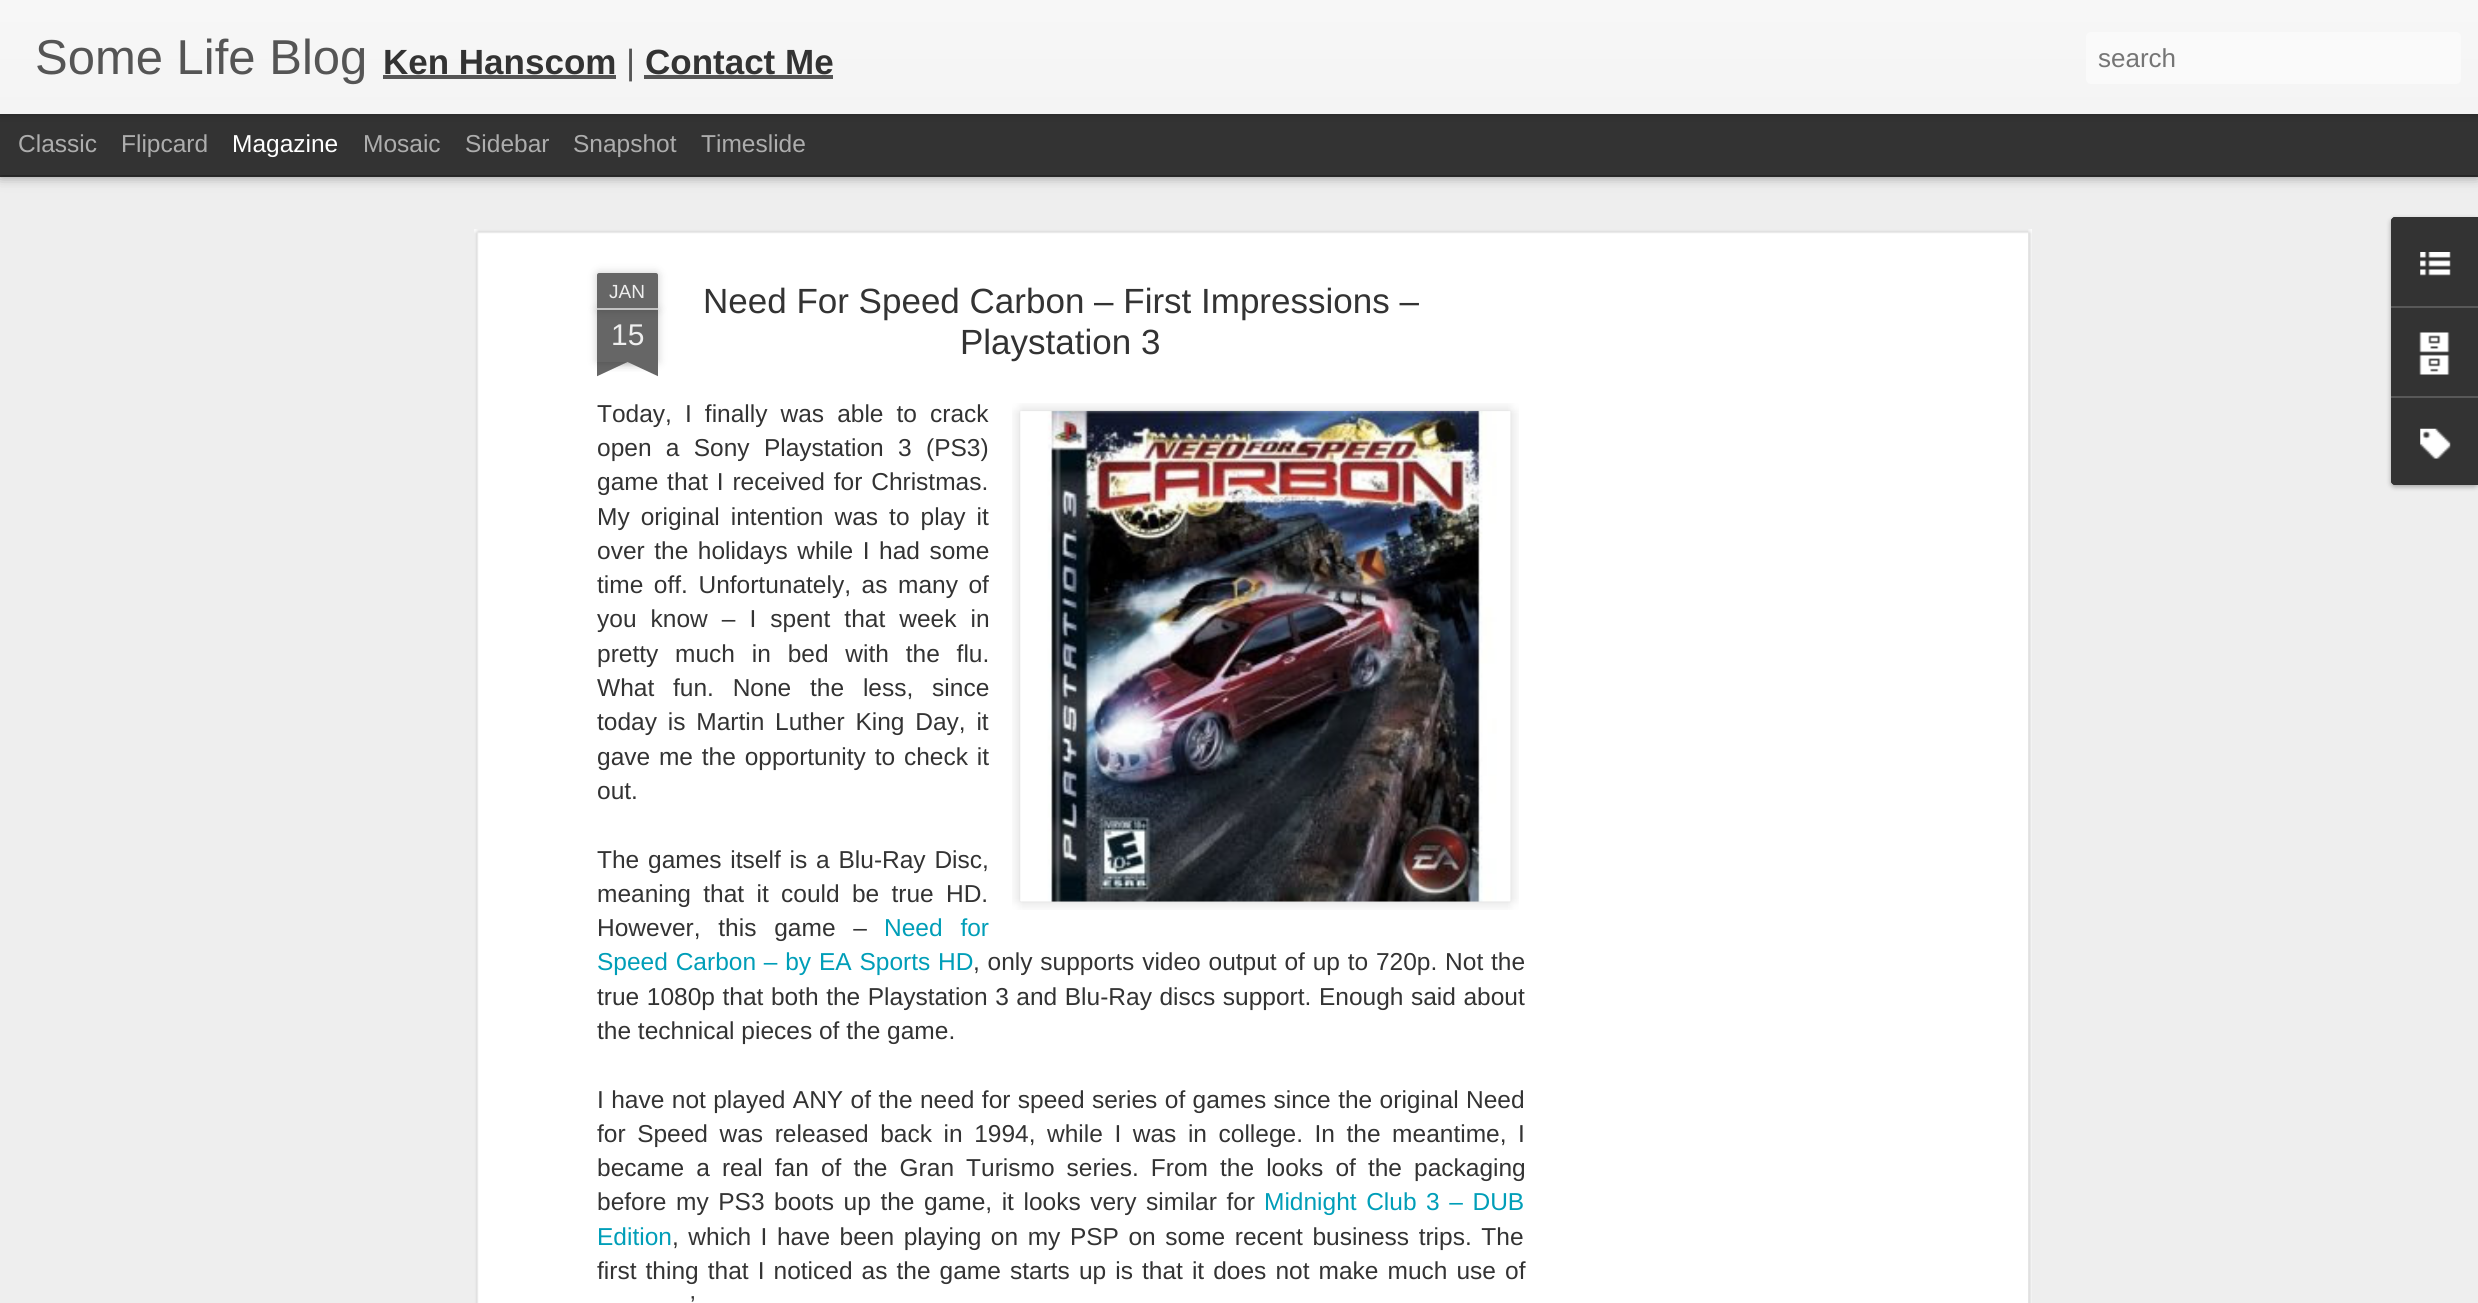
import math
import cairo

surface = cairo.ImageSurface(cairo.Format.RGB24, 2478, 1303)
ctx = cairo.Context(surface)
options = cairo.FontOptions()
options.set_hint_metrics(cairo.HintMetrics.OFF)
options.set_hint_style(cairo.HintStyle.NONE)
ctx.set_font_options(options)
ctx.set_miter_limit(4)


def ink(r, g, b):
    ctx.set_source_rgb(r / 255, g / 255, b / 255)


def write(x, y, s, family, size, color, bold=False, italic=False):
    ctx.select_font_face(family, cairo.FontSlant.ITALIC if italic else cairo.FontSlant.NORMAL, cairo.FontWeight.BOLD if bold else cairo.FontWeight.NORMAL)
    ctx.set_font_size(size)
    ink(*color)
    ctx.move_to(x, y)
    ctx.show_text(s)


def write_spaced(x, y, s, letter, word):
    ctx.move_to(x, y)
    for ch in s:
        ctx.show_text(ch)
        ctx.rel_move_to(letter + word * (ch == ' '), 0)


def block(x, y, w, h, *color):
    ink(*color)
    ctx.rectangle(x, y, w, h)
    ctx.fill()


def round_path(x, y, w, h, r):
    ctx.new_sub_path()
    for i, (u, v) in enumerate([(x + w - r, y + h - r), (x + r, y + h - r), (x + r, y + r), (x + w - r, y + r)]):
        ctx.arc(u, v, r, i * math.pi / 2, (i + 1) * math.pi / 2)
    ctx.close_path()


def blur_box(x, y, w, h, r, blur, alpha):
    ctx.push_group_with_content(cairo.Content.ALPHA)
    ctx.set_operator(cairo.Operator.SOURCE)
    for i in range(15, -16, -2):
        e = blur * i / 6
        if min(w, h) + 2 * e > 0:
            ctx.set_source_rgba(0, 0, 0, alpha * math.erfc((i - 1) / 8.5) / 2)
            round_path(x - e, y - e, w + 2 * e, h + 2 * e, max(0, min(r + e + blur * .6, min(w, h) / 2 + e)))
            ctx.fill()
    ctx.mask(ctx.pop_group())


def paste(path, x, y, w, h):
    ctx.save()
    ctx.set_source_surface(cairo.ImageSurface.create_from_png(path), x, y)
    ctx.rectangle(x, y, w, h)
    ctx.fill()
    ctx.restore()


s1 = dict(family="Liberation Sans", size=49, color=(85, 85, 85))
s2 = dict(family="Liberation Sans", size=35, color=(51, 51, 51), bold=True)
s3 = dict(family="Liberation Sans", size=35, color=(85, 85, 85))
s4 = dict(family="Liberation Sans", size=26, color=(117, 117, 117))
s5 = dict(family="Liberation Sans", size=24.5, color=(173, 173, 173))
s6 = dict(family="Liberation Sans", size=24.5, color=(255, 255, 255))
s7 = dict(family="Liberation Sans", size=19, color=(238, 238, 238))
s8 = dict(family="Liberation Sans", size=30, color=(238, 238, 238))
s9 = dict(family="Liberation Sans", size=35, color=(51, 51, 51))
s10 = dict(family="Liberation Sans", size=24.5, color=(51, 51, 51))
s11 = dict(family="Liberation Sans", size=24.5, color=(0, 158, 184))

ink(51, 51, 51)
ctx.paint()
block(0, 177, 2478, 1126, 238, 238, 238)
ink(0, 0, 0)
blur_box(0, 114, 2478, 61, 0, 7, 0.5)
block(0, 114, 2478, 61, 51, 51, 51)
ink(0, 0, 0)
blur_box(0, 0, 2478, 114, 0, 4.5, 0.3)
gradient = cairo.LinearGradient(0, 0, 0, 114)
gradient.add_color_stop_rgba(0, 0.969, 0.969, 0.969, 1)
gradient.add_color_stop_rgba(1, 0.957, 0.957, 0.957, 1)
ctx.set_source(gradient)
ctx.rectangle(0, 0, 2478, 114)
ctx.fill()
write(35, 74, "Some Life Blog", **s1)
write(383, 74, "Ken Hanscom", **s2)
block(383, 75, 233, 4, 85, 85, 85)
write(626, 74, "|", **s3)
write(645, 74, "Contact Me", **s2)
block(644, 75, 189, 4, 85, 85, 85)
ink(250, 250, 250)
round_path(2086, 32, 375, 52, 5)
ctx.fill()
write(2098, 67, "search", **s4)
write(18, 152, "Classic", **s5)
write(121, 152, "Flipcard", **s5)
write(232, 152, "Magazine", **s6)
write(363, 152, "Mosaic", **s5)
write(465, 152, "Sidebar", **s5)
write(573, 152, "Snapshot", **s5)
write(701, 152, "Timeslide", **s5)
block(474, 229, 1558, 1074, 255, 255, 255)
paste("pic1.png", 474, 229, 1558, 1074)
ink(0, 0, 0)
blur_box(597, 310, 61, 52, 0, 4.5, 0.2)
block(597, 310, 61, 52, 102, 102, 102)
ink(0, 0, 0)
blur_box(597, 273, 61, 37, 2, 4.5, 0.2)
ink(102, 102, 102)
ctx.new_path()
ctx.move_to(599, 273)
ctx.line_to(656, 273)
ctx.curve_to(657, 273, 658, 274, 658, 275)
ctx.line_to(658, 310)
ctx.line_to(597, 310)
ctx.line_to(597, 275)
ctx.curve_to(597, 274, 598, 273, 599, 273)
ctx.close_path()
ctx.fill()
block(597, 308, 61, 2, 194, 194, 194)
write(609, 298, "JAN", **s7)
write(611, 345, "15", **s8)
ctx.save()
ctx.rectangle(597, 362, 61, 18)
ctx.clip()
ink(0, 0, 0)
blur_box(581, 345, 88, 17, 0, 4.5, 0.2)
ctx.restore()
ctx.save()
ctx.rectangle(597, 362, 61, 18)
ctx.clip()
ink(102, 102, 102)
ctx.new_path()
ctx.move_to(581, 364)
ctx.line_to(661, 327)
ctx.line_to(668, 343)
ctx.line_to(589, 380)
ctx.close_path()
ctx.fill()
ctx.restore()
ctx.save()
ctx.rectangle(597, 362, 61, 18)
ctx.clip()
ink(0, 0, 0)
blur_box(586, 345, 88, 17, 0, 4.5, 0.2)
ctx.restore()
ctx.save()
ctx.rectangle(597, 362, 61, 18)
ctx.clip()
ink(102, 102, 102)
ctx.new_path()
ctx.move_to(594, 327)
ctx.line_to(673, 364)
ctx.line_to(666, 380)
ctx.line_to(587, 343)
ctx.close_path()
ctx.fill()
ctx.restore()
write(703, 313, "Need For Speed Carbon – First Impressions –", **s9)
write(960, 354, "Playstation 3", **s9)
ctx.set_font_size(24.5)
write_spaced(597, 422, "Today, I finally was able to crack", 0, 6.25)
paste("pic2.png", 1012, 403, 507, 507)
paste("pic3.png", 1021, 410, 490, 492)
write_spaced(597, 456, "open a Sony Playstation 3 (PS3)", 0, 7.5)
write_spaced(597, 490, "game that I received for Christmas.", 0, 2)
write_spaced(597, 525, "My original intention was to play it", 0, 4.25)
write_spaced(597, 559, "over the holidays while I had some", 0, 2.75)
write_spaced(597, 593, "time off. Unfortunately, as many of", 0, 3.75)
write_spaced(597, 627, "you know – I spent that week in", 0, 7.25)
write_spaced(597, 662, "pretty much in bed with the flu.", 0, 10)
write_spaced(597, 696, "What fun. None the less, since", 0, 12)
write_spaced(597, 730, "today is Martin Luther King Day, it", 0, 4)
write_spaced(597, 765, "gave me the opportunity to check it", 0, 2)
write(597, 799, "out.", **s10)
write_spaced(597, 868, "The games itself is a Blu-Ray Disc,", 0, 2)
write_spaced(597, 902, "meaning that it could be true HD.", 0, 5.5)
write_spaced(597, 936, "However, this game –", 0, 11)
ink(0, 158, 184)
write_spaced(884, 936, "Need for", 0, 11)
write_spaced(597, 970, "Speed Carbon – by EA Sports HD", 0, 1)
ink(51, 51, 51)
write_spaced(973, 970, ", only supports video output of up to 720p. Not the", 0, 1)
write_spaced(597, 1005, "true 1080p that both the Playstation 3 and Blu-Ray discs support. Enough said about", 0, 0.75)
write(597, 1039, "the technical pieces of the game.", **s10)
write_spaced(597, 1108, "I have not played ANY of the need for speed series of games since the original Need", 0, 0.6)
write_spaced(597, 1142, "for Speed was released back in 1994, while I was in college. In the meantime, I", 0, 4.75)
write_spaced(597, 1176, "became a real fan of the Gran Turismo series. From the looks of the packaging", 0, 5.25)
write_spaced(597, 1210, "before my PS3 boots up the game, it looks very similar for", 0, 2.75)
ink(0, 158, 184)
write_spaced(1264, 1210, "Midnight Club 3 – DUB", 0, 2.75)
write(597, 1245, "Edition", **s11)
ink(51, 51, 51)
write_spaced(672, 1245, ", which I have been playing on my PSP on some recent business trips. The", 0, 2.75)
write_spaced(597, 1279, "first thing that I noticed as the game starts up is that it does not make much use of", 0, 2.25)
write_spaced(690, 1313, "’", 0, 6)
ink(0, 0, 0)
blur_box(2391, 219, 87, 268, 4, 2.5, 0.3)
ink(51, 51, 51)
ctx.new_path()
ctx.move_to(2395, 217)
ctx.line_to(2478, 217)
ctx.line_to(2478, 485)
ctx.line_to(2395, 485)
ctx.curve_to(2393, 485, 2391, 483, 2391, 481)
ctx.line_to(2391, 221)
ctx.curve_to(2391, 219, 2393, 217, 2395, 217)
ctx.close_path()
ctx.fill()
ctx.new_path()
ctx.move_to(2395, 217)
ctx.line_to(2478, 217)
ctx.line_to(2478, 306)
ctx.line_to(2391, 306)
ctx.line_to(2391, 221)
ctx.curve_to(2391, 219, 2393, 217, 2395, 217)
ctx.close_path()
ctx.fill()
paste("pic4.png", 2420, 252, 31, 24)
block(2391, 306, 87, 2, 88, 88, 88)
paste("pic5.png", 2419, 332, 31, 43)
ink(51, 51, 51)
ctx.new_path()
ctx.move_to(2391, 396)
ctx.line_to(2478, 396)
ctx.line_to(2478, 485)
ctx.line_to(2395, 485)
ctx.curve_to(2393, 485, 2391, 483, 2391, 481)
ctx.close_path()
ctx.fill()
block(2391, 396, 87, 2, 88, 88, 88)
paste("pic6.png", 2420, 428, 31, 31)
surface.write_to_png("screenshot.png")
